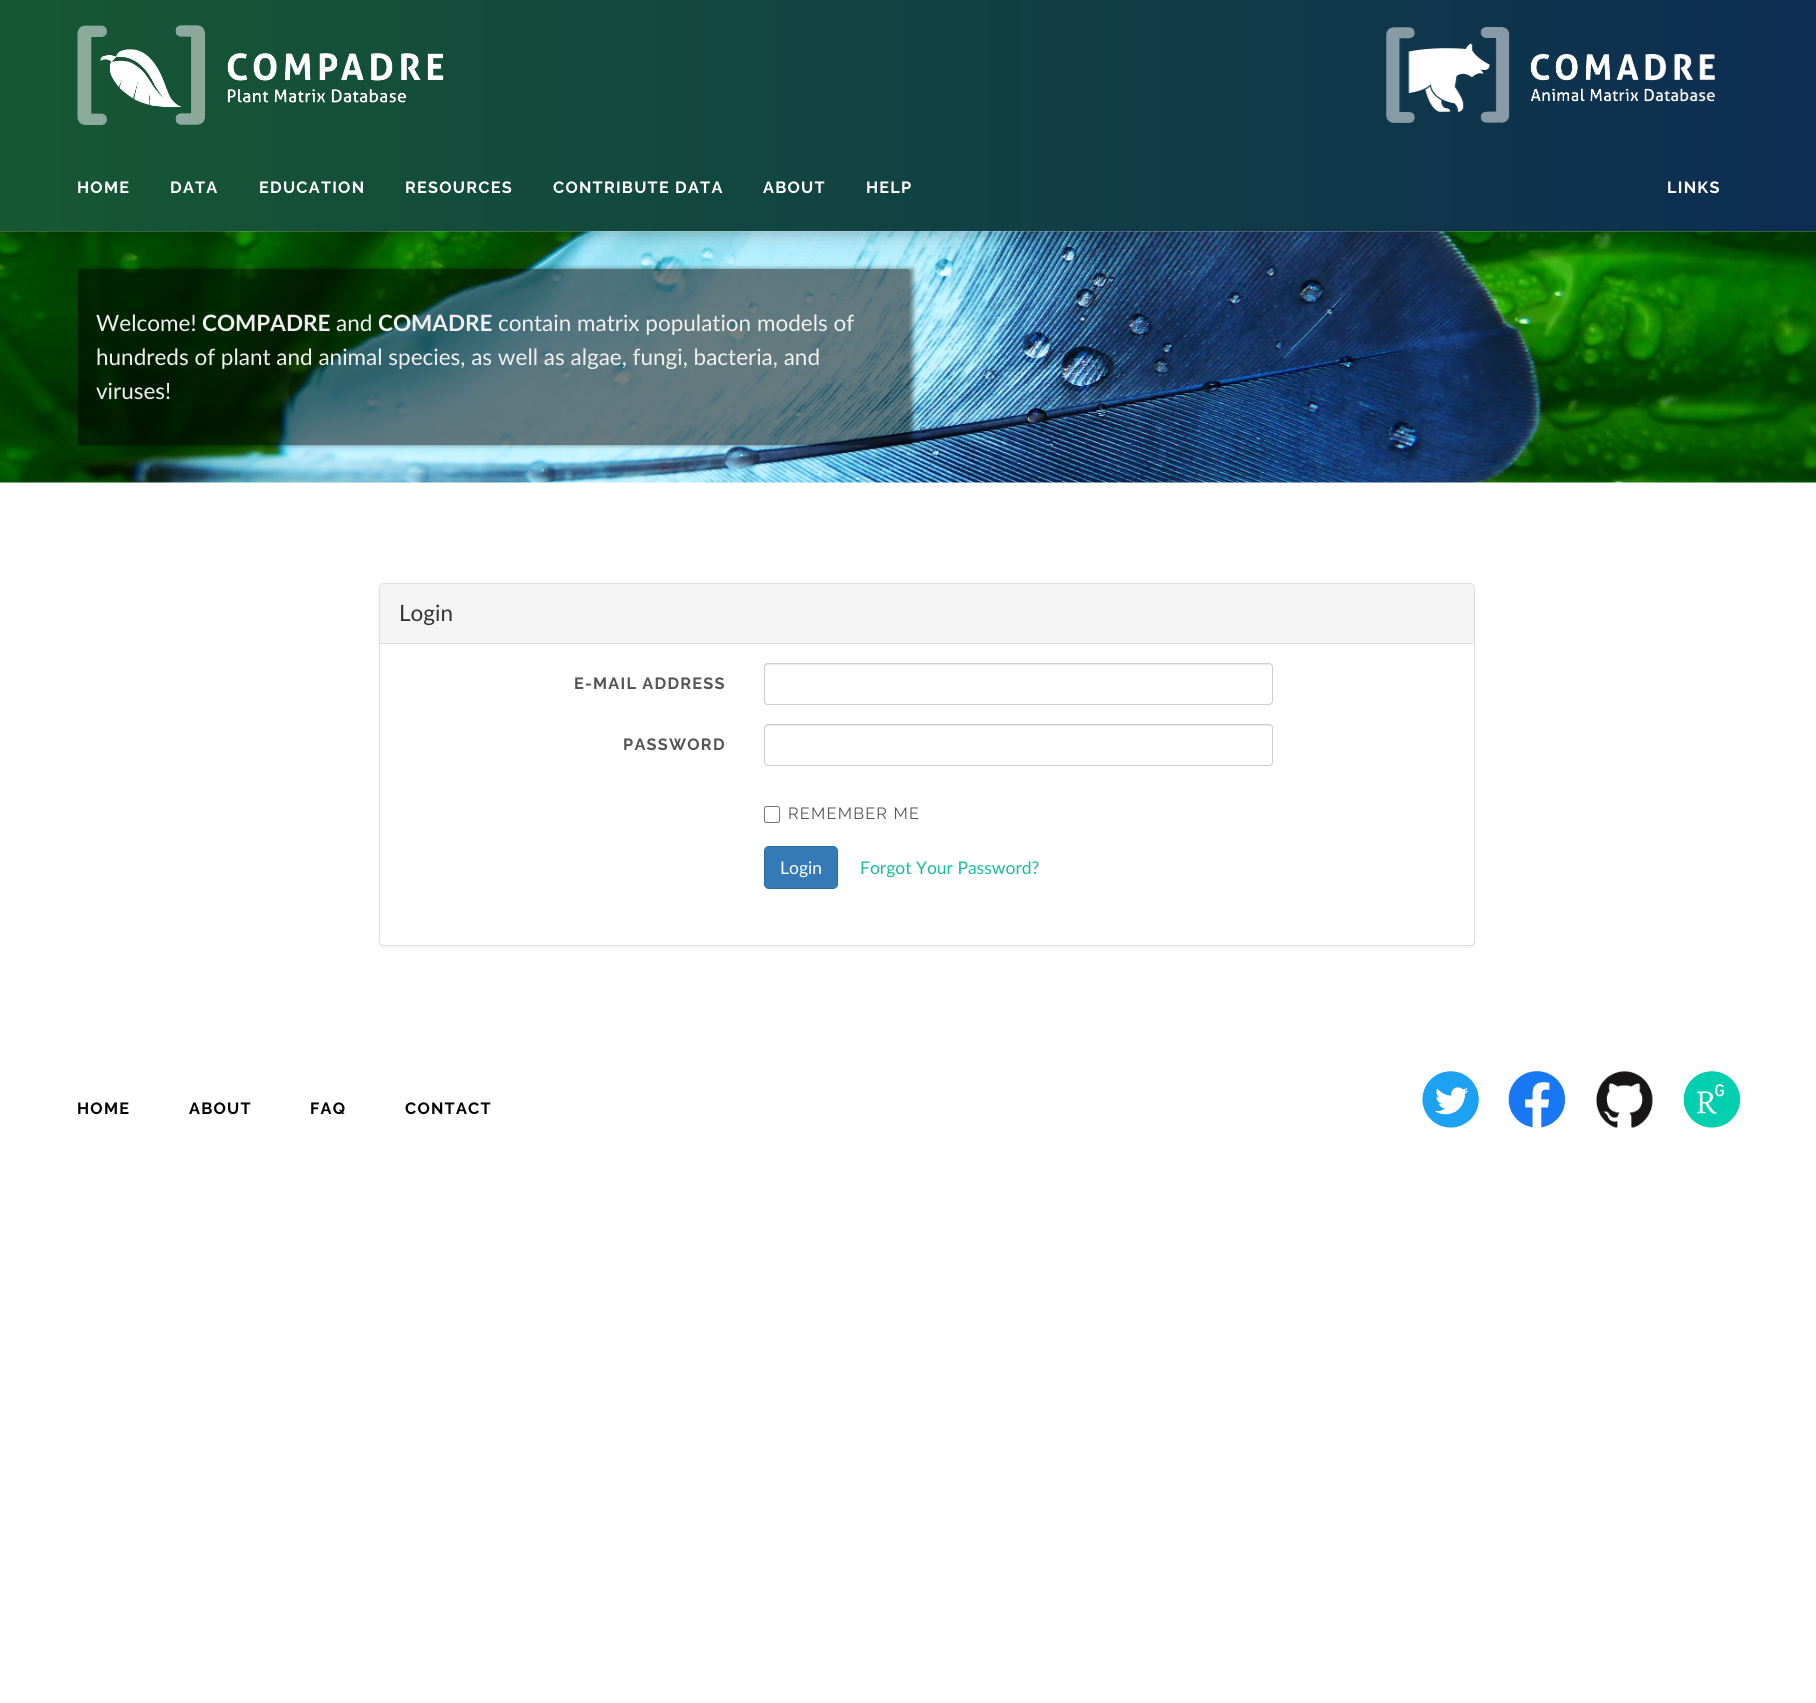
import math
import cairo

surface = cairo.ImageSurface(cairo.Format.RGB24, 1816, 1703)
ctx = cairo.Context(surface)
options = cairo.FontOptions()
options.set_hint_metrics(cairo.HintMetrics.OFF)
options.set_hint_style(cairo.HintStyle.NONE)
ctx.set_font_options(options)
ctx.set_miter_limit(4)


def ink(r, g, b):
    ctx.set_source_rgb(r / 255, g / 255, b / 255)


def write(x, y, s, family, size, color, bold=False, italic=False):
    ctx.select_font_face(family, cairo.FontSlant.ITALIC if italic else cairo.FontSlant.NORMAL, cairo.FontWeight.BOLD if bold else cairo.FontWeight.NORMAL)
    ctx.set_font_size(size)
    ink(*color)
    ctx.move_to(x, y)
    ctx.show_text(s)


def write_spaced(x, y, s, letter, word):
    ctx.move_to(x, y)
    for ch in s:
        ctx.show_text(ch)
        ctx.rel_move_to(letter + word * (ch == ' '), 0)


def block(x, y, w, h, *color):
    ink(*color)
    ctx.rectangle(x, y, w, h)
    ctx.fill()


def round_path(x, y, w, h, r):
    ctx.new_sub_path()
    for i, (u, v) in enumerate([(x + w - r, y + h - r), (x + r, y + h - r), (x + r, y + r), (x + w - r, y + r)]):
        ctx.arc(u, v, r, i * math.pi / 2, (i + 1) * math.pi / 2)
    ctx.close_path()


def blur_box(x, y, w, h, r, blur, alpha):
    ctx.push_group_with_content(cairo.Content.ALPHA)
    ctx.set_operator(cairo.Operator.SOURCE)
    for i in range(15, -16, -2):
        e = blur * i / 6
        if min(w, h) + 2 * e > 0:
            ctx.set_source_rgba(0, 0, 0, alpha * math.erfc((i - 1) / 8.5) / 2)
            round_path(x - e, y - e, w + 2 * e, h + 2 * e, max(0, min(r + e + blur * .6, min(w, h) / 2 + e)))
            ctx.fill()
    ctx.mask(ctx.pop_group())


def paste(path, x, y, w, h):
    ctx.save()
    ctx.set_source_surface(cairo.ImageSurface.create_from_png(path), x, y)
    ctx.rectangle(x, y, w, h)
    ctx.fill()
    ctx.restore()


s1 = dict(family="Lato", size=22.5, color=(240, 240, 240))
s2 = dict(family="Lato", size=22.5, color=(240, 240, 240), bold=True)
s3 = dict(family="Lato", size=22.5, color=(51, 51, 51))
s4 = dict(family="Lato", size=17.5, color=(255, 255, 255))
s5 = dict(family="Lato", size=17.5, color=(26, 188, 156))

ink(255, 255, 255)
ctx.paint()
paste("pic3.png", 0, 231, 1816, 252)
ink(0, 0, 0)
blur_box(0, 8, 1816, 231, 0, 12.5, 0.1)
blur_box(0, 5, 1816, 231, 0, 5, 0.1)
gradient = cairo.LinearGradient(0, 116, 1816, 116)
gradient.add_color_stop_rgba(0, 0.086, 0.345, 0.2, 1)
gradient.add_color_stop_rgba(1, 0.051, 0.176, 0.322, 1)
ctx.set_source(gradient)
ctx.rectangle(0, 0, 1816, 231)
ctx.fill()
paste("pic1.png", 77, 25, 367, 100)
paste("pic2.png", 1386, 27, 329, 96)
ctx.select_font_face("Raleway", cairo.FontSlant.NORMAL, cairo.FontWeight.BOLD)
ctx.set_font_size(16.25)
ink(255, 255, 255)
write_spaced(77, 193, "HOME", 1.25, 0)
write_spaced(170, 193, "DATA", 1.25, 0)
write_spaced(259, 193, "EDUCATION", 1.25, 0)
write_spaced(405, 193, "RESOURCES", 1.25, 0)
write_spaced(553, 193, "CONTRIBUTE DATA", 1.25, 0)
write_spaced(763, 193, "ABOUT", 1.25, 0)
write_spaced(866, 193, "HELP", 1.25, 0)
write_spaced(1667, 193, "LINKS", 1.25, 0)
ctx.save()
ctx.set_fill_rule(cairo.FillRule.EVEN_ODD)
ctx.new_path()
ctx.move_to(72, 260)
ctx.line_to(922, 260)
ctx.line_to(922, 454)
ctx.line_to(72, 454)
ctx.close_path()
ctx.move_to(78, 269)
ctx.line_to(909, 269)
ctx.line_to(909, 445)
ctx.line_to(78, 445)
ctx.close_path()
ctx.clip()
ink(0, 0, 0)
blur_box(81, 269, 832, 176, 0, 2.5, 0.5)
ctx.restore()
ctx.set_source_rgba(0, 0, 0, 0.5)
ctx.rectangle(78, 269, 831, 176)
ctx.fill()
write(96, 331, "Welcome!", **s1)
write(202, 331, "COMPADRE", **s2)
write(336, 331, "and", **s1)
write(378, 331, "COMADRE", **s2)
write(498, 331, "contain matrix population models of", **s1)
write(96, 365, "hundreds of plant and animal species, as well as algae, fungi, bacteria, and", **s1)
write(96, 399, "viruses!", **s1)
ink(0, 0, 0)
blur_box(379, 584, 1096, 364, 5, 0.5, 0.05)
ink(255, 255, 255)
round_path(379.5, 583.5, 1095, 362, 4.5)
ctx.fill_preserve()
ink(221, 221, 221)
ctx.set_line_width(1)
ctx.stroke()
ink(245, 245, 245)
ctx.new_path()
ctx.move_to(384, 584)
ctx.line_to(1470, 584)
ctx.curve_to(1472, 584, 1474, 586, 1474, 588)
ctx.line_to(1474, 644)
ctx.line_to(380, 644)
ctx.line_to(380, 588)
ctx.curve_to(380, 586, 382, 584, 384, 584)
ctx.close_path()
ctx.fill()
block(380, 643, 1094, 1, 221, 221, 221)
write(399, 621, "Login", **s3)
ctx.select_font_face("Raleway", cairo.FontSlant.NORMAL, cairo.FontWeight.BOLD)
ctx.set_font_size(16.25)
ink(85, 85, 85)
write_spaced(574, 689, "E-MAIL ADDRESS", 1.25, 0)
ink(236, 236, 236)
ctx.new_path()
ctx.move_to(768, 665)
ctx.line_to(1269, 665)
ctx.curve_to(1270, 665, 1271, 666, 1271, 668)
ctx.curve_to(1271, 666, 1271, 664, 1268, 664)
ctx.line_to(768, 664)
ctx.curve_to(765, 664, 765, 666, 765, 668)
ctx.curve_to(765, 666, 766, 665, 768, 665)
ctx.close_path()
ctx.fill()
round_path(764.5, 663.5, 508, 41, 3.5)
ink(204, 204, 204)
ctx.stroke()
ink(85, 85, 85)
write_spaced(623, 750, "PASSWORD", 1.25, 0)
ink(236, 236, 236)
ctx.new_path()
ctx.move_to(768, 726)
ctx.line_to(1269, 726)
ctx.curve_to(1270, 726, 1271, 727, 1271, 729)
ctx.curve_to(1271, 727, 1271, 725, 1268, 725)
ctx.line_to(768, 725)
ctx.curve_to(765, 725, 765, 727, 765, 729)
ctx.curve_to(765, 727, 766, 726, 768, 726)
ctx.close_path()
ctx.fill()
round_path(764.5, 724.5, 508, 41, 3.5)
ink(204, 204, 204)
ctx.stroke()
round_path(764.5, 806.5, 15, 16, 2)
ink(118, 118, 118)
ctx.stroke()
ctx.select_font_face("Raleway")
ink(85, 85, 85)
write_spaced(788, 819, "REMEMBER ME", 1.25, 0)
ink(51, 122, 183)
round_path(764.5, 846.5, 73, 42, 4.5)
ctx.fill_preserve()
ink(46, 109, 164)
ctx.stroke()
write(780, 874, "Login", **s4)
write(860, 874, "Forgot Your Password?", **s5)
ctx.select_font_face("Raleway", cairo.FontSlant.NORMAL, cairo.FontWeight.BOLD)
ctx.set_font_size(16.25)
ink(0, 0, 0)
write_spaced(77, 1114, "HOME", 1.25, 0)
write_spaced(189, 1114, "ABOUT", 1.25, 0)
write_spaced(310, 1114, "FAQ", 1.25, 0)
write_spaced(405, 1114, "CONTACT", 1.25, 0)
paste("pic4.png", 1422, 1071, 57, 57)
paste("pic5.png", 1508, 1071, 57, 57)
paste("pic6.png", 1596, 1071, 57, 57)
paste("pic7.png", 1683, 1071, 57, 57)
surface.write_to_png("screenshot.png")
